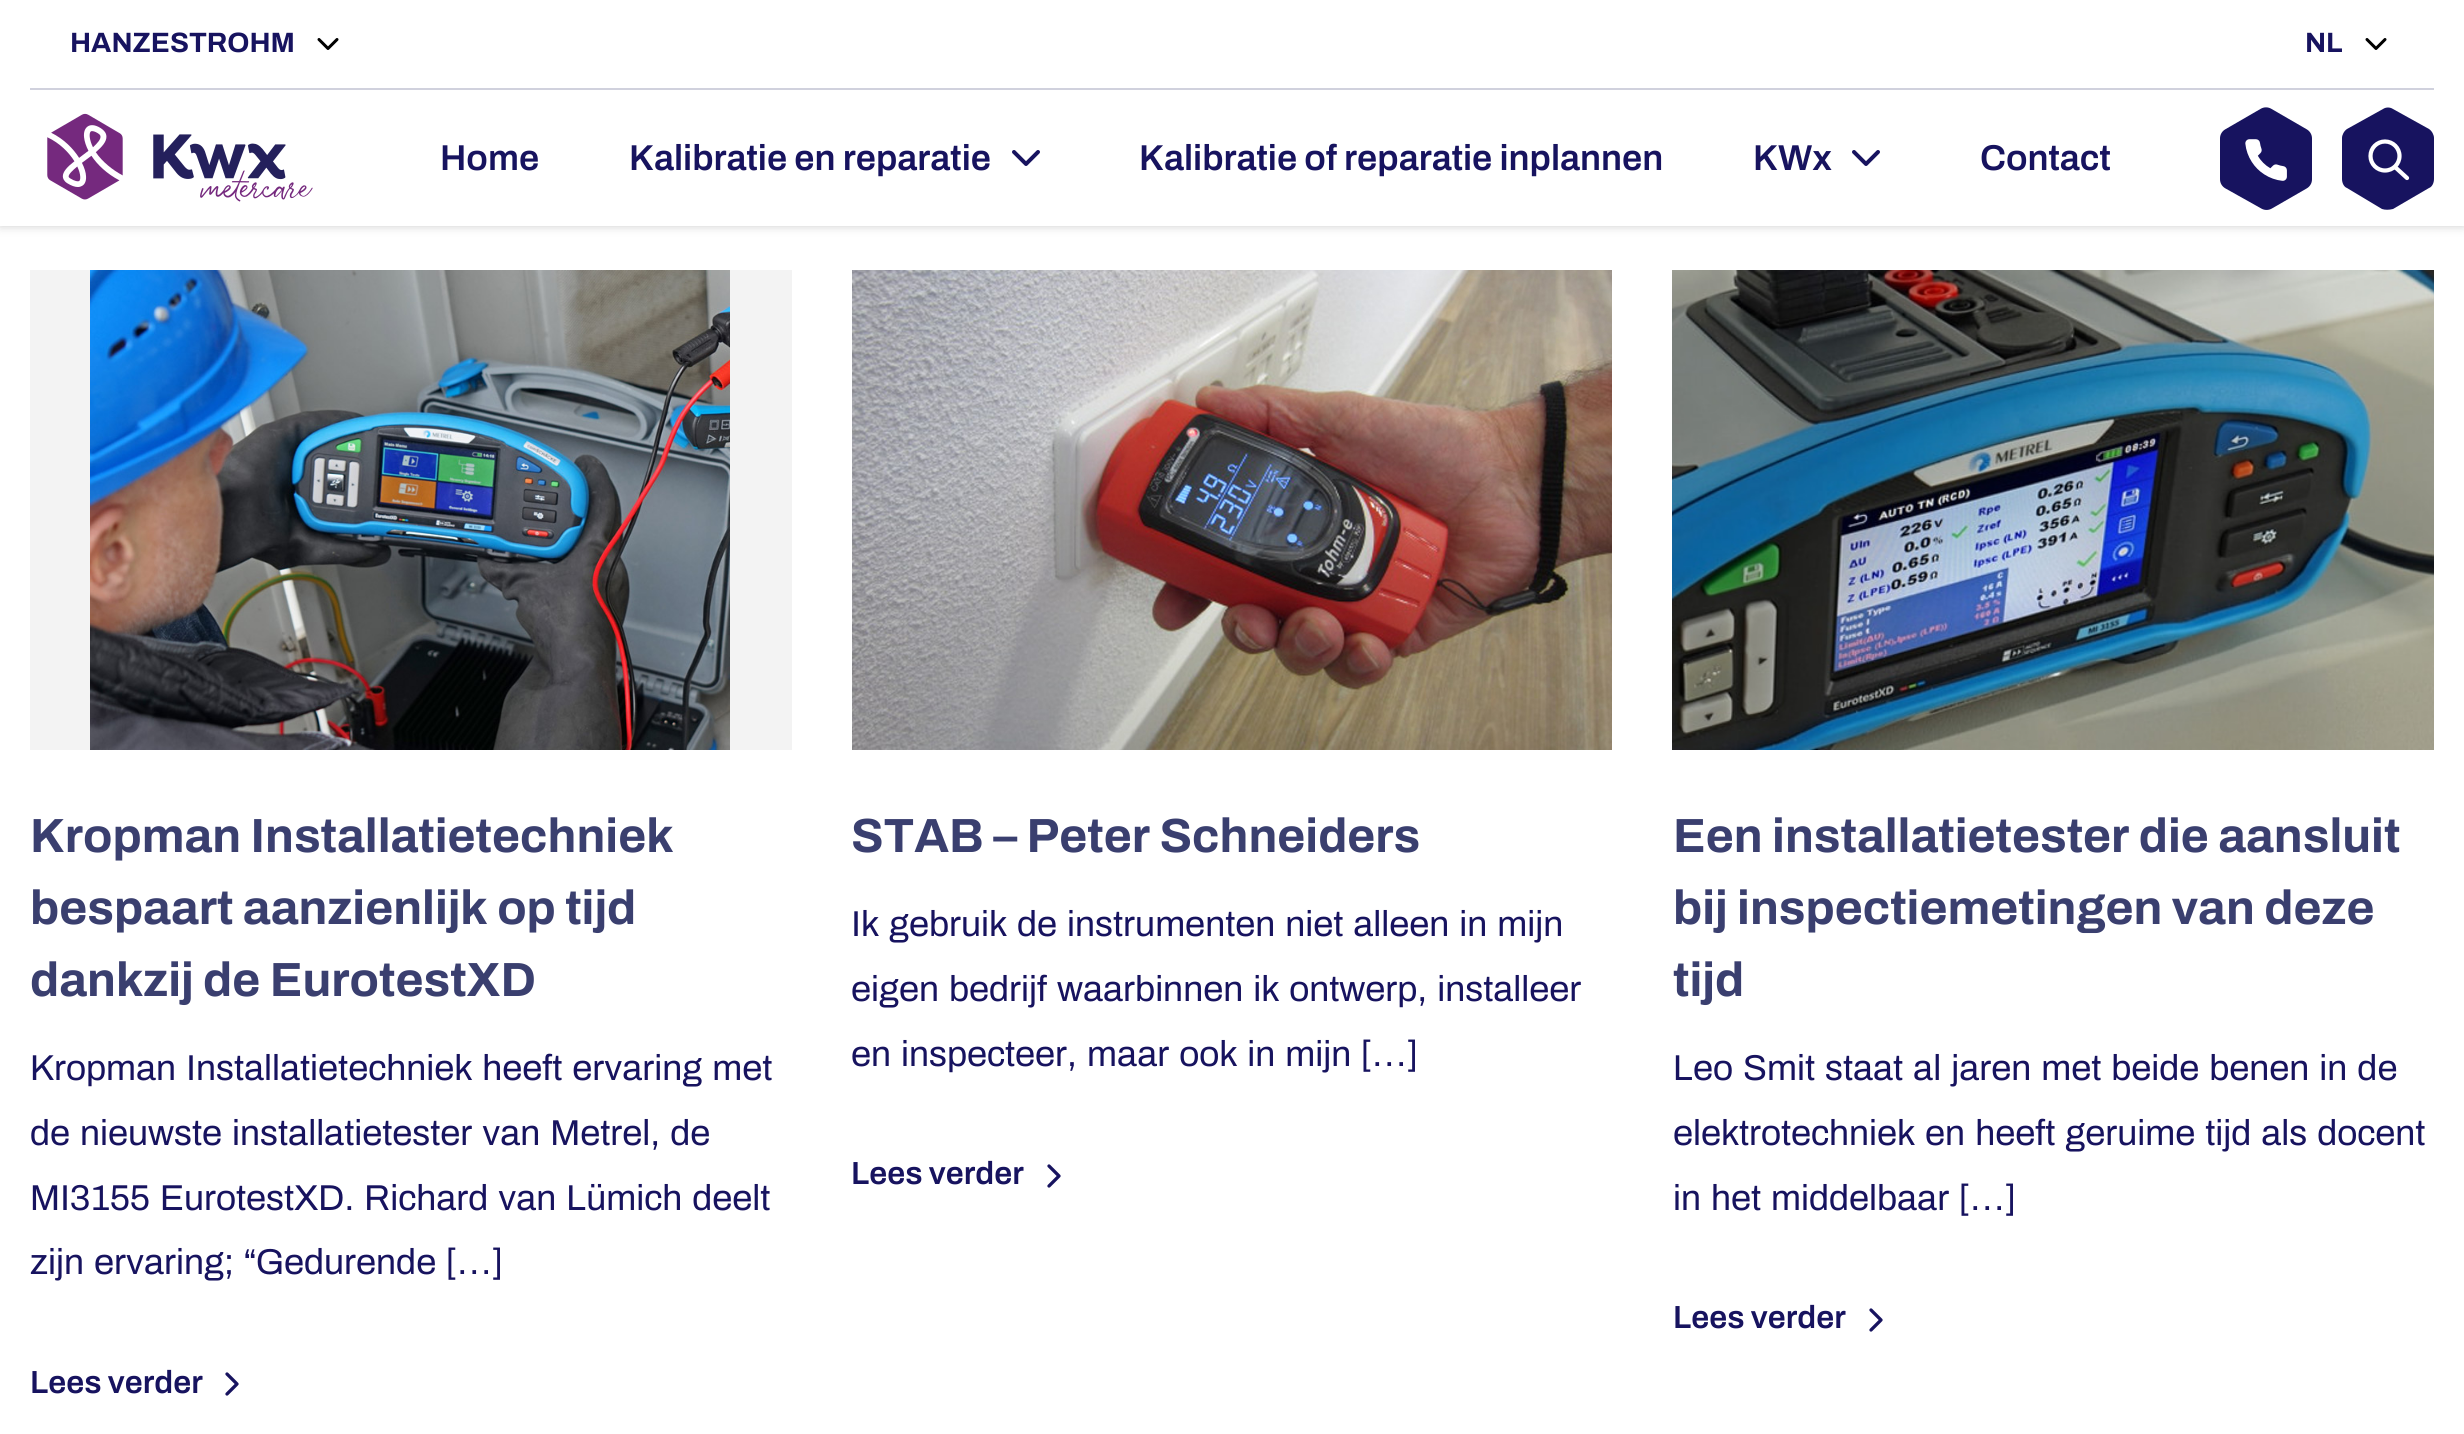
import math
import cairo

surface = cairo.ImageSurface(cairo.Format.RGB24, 2464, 1434)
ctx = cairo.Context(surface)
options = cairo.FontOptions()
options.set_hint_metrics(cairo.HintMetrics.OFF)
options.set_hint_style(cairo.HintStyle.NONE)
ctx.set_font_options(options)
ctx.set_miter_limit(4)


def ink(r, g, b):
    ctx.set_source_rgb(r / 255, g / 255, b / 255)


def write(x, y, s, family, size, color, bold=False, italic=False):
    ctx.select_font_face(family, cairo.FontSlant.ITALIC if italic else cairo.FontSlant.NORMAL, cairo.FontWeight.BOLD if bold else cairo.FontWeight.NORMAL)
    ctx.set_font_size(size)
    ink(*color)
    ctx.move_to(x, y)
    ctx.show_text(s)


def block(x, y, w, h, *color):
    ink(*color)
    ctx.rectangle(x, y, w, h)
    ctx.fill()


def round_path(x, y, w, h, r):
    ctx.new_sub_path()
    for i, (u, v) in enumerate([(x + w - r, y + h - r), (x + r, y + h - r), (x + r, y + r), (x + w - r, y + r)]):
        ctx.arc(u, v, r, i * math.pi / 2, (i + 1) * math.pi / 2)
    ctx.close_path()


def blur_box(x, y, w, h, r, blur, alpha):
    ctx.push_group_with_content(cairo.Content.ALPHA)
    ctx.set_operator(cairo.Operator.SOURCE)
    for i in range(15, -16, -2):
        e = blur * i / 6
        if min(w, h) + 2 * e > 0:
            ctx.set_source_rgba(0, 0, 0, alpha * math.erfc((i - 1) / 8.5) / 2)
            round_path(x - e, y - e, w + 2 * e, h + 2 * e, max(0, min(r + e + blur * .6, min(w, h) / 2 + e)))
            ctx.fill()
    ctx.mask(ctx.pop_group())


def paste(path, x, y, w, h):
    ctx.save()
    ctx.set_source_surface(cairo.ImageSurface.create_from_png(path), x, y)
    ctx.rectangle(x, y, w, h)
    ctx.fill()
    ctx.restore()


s1 = dict(family="Archivo", size=28, color=(23, 19, 95), bold=True)
s2 = dict(family="Archivo SemiBold", size=36, color=(23, 19, 95))
s3 = dict(family="Archivo", size=48, color=(58, 63, 111), bold=True)
s4 = dict(family="Archivo", size=36, color=(23, 19, 95))
s5 = dict(family="Archivo SemiBold", size=32, color=(23, 19, 95))

ink(255, 255, 255)
ctx.paint()
ink(0, 0, 0)
blur_box(0, 0, 2464, 226, 0, 5, 0.2)
block(0, 0, 2464, 226, 255, 255, 255)
block(30, 88, 2404, 2, 208, 209, 221)
write(70, 52, "HANZESTROHM", **s1)
ctx.new_path()
ctx.move_to(319, 39.5)
ctx.line_to(328, 48.5)
ctx.line_to(337, 39.5)
ink(0, 0, 0)
ctx.set_line_width(3)
ctx.set_line_cap(cairo.LineCap.ROUND)
ctx.set_line_join(cairo.LineJoin.ROUND)
ctx.stroke()
write(2305, 52, "NL", **s1)
ctx.new_path()
ctx.move_to(2367, 39.5)
ctx.line_to(2376, 48.5)
ctx.line_to(2385, 39.5)
ink(0, 0, 0)
ctx.stroke()
paste("pic1.png", 47, 113, 266, 89)
write(440, 170, "Home", **s2)
write(629, 170, "Kalibratie en reparatie", **s2)
ctx.new_path()
ctx.move_to(1014, 152)
ctx.line_to(1026, 164)
ctx.line_to(1038, 152)
ctx.set_line_width(4)
ctx.stroke()
write(1139, 170, "Kalibratie of reparatie inplannen", **s2)
write(1753, 170, "KWx", **s2)
ctx.new_path()
ctx.move_to(1854, 152)
ctx.line_to(1866, 164)
ctx.line_to(1878, 152)
ctx.stroke()
write(1980, 170, "Contact", **s2)
paste("pic2.png", 2220, 107, 92, 103)
ctx.set_fill_rule(cairo.FillRule.EVEN_ODD)
ctx.new_path()
ctx.move_to(2347, 188)
ctx.line_to(2382, 209)
ctx.curve_to(2385, 210, 2389, 210, 2393, 209)
ctx.line_to(2429, 188)
ctx.curve_to(2432, 187, 2434, 183, 2434, 179)
ctx.line_to(2434, 138)
ctx.curve_to(2434, 135, 2432, 131, 2429, 129)
ctx.line_to(2393, 109)
ctx.curve_to(2390, 107, 2386, 107, 2383, 109)
ctx.line_to(2347, 129)
ctx.curve_to(2344, 131, 2342, 135, 2342, 138)
ctx.line_to(2342, 179)
ctx.curve_to(2342, 183, 2344, 187, 2347, 188)
ctx.close_path()
ctx.fill()
ctx.arc(2385, 156, 14.5, 0, 2 * math.pi)
ink(255, 255, 255)
ctx.set_line_width(4.2)
ctx.set_line_cap(cairo.LineCap.BUTT)
ctx.set_line_join(cairo.LineJoin.MITER)
ctx.stroke()
ctx.new_path()
ctx.move_to(2407, 178)
ctx.line_to(2395.5, 167.5)
ctx.set_line_cap(cairo.LineCap.ROUND)
ctx.set_line_join(cairo.LineJoin.ROUND)
ctx.stroke()
block(30, 270, 762, 480, 243, 243, 243)
paste("pic3.png", 90, 270, 640, 480)
write(30, 852, "Kropman Installatietechniek", **s3)
write(30, 924, "bespaart aanzienlijk op tijd", **s3)
write(30, 996, "dankzij de EurotestXD", **s3)
write(30, 1080, "Kropman Installatietechniek heeft ervaring met", **s4)
write(30, 1145, "de nieuwste installatietester van Metrel, de", **s4)
write(30, 1210, "MI3155 EurotestXD. Richard van Lümich deelt", **s4)
write(30, 1274, "zijn ervaring; “Gedurende […]", **s4)
write(30, 1393, "Lees verder", **s5)
ctx.new_path()
ctx.move_to(227, 1394)
ctx.line_to(237, 1384)
ctx.line_to(227, 1374)
ctx.set_line_width(3.3)
ctx.stroke()
paste("pic4.png", 852, 270, 760, 480)
write(851, 852, "STAB – Peter Schneiders", **s3)
write(851, 936, "Ik gebruik de instrumenten niet alleen in mijn", **s4)
write(851, 1001, "eigen bedrijf waarbinnen ik ontwerp, installeer", **s4)
write(851, 1066, "en inspecteer, maar ook in mijn […]", **s4)
write(851, 1184, "Lees verder", **s5)
ctx.new_path()
ctx.move_to(1049, 1186)
ctx.line_to(1059, 1176)
ctx.line_to(1049, 1166)
ctx.stroke()
paste("pic5.png", 1672, 270, 762, 480)
write(1673, 852, "Een installatietester die aansluit", **s3)
write(1673, 924, "bij inspectiemetingen van deze", **s3)
write(1673, 996, "tijd", **s3)
write(1673, 1080, "Leo Smit staat al jaren met beide benen in de", **s4)
write(1673, 1145, "elektrotechniek en heeft geruime tijd als docent", **s4)
write(1673, 1210, "in het middelbaar […]", **s4)
write(1673, 1328, "Lees verder", **s5)
ctx.new_path()
ctx.move_to(1871, 1330)
ctx.line_to(1881, 1320)
ctx.line_to(1871, 1310)
ctx.stroke()
surface.write_to_png("screenshot.png")
